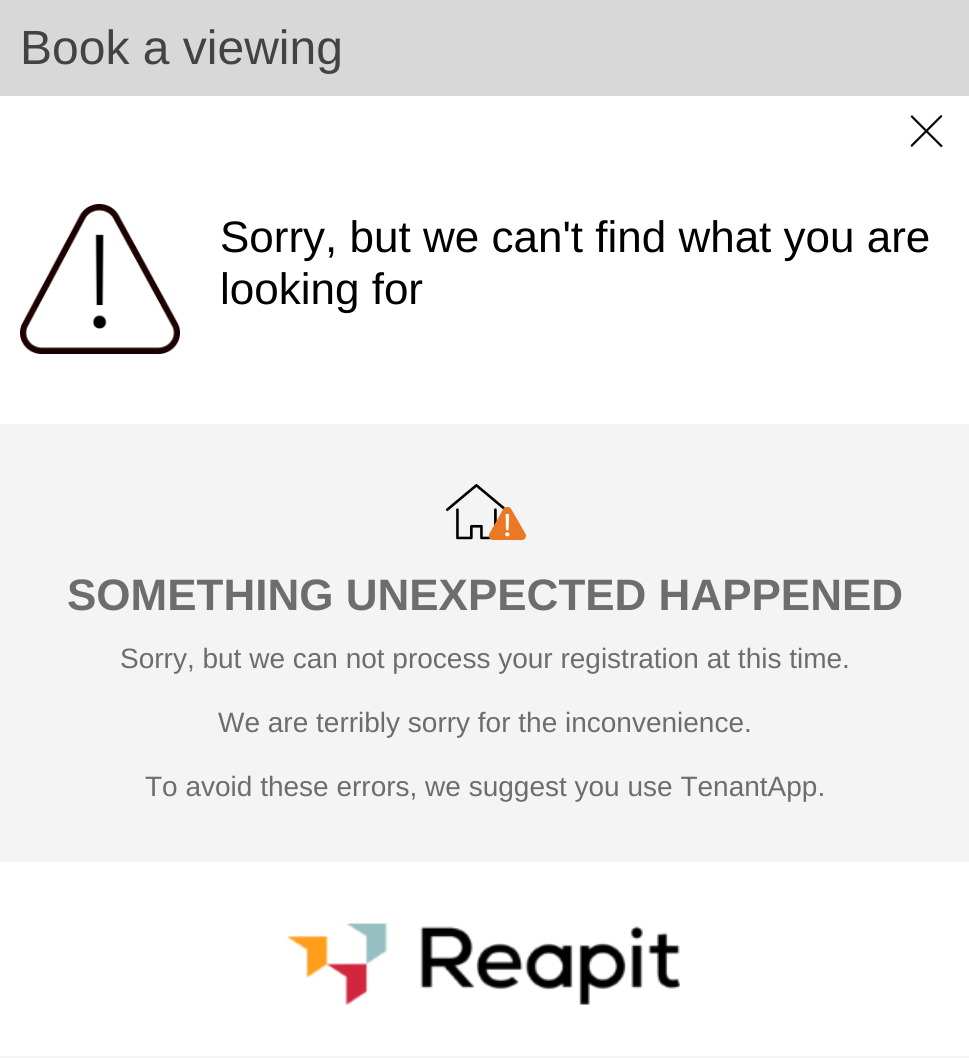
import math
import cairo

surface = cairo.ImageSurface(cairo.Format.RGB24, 969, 1058)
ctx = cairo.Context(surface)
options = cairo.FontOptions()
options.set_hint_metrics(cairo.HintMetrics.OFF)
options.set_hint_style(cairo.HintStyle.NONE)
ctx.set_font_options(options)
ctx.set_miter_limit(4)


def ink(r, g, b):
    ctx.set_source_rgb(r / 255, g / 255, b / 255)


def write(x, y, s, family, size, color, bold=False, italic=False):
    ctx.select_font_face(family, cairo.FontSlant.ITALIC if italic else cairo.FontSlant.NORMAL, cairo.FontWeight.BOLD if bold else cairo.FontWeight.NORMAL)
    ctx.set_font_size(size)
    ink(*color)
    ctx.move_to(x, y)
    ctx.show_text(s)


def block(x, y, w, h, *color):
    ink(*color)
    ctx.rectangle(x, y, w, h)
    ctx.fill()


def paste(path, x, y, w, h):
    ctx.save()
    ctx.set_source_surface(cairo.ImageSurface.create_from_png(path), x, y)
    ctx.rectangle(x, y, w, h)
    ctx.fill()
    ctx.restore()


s1 = dict(family="Liberation Sans", size=48, color=(67, 67, 67))
s2 = dict(family="Liberation Sans", size=44, color=(0, 0, 0))
s3 = dict(family="Liberation Sans", size=44, color=(109, 109, 109), bold=True)
s4 = dict(family="Liberation Sans", size=28, color=(109, 109, 109))

ink(245, 245, 245)
ctx.paint()
block(0, 96, 969, 960, 255, 255, 255)
block(0, 0, 969, 96, 216, 216, 216)
write(20, 64, "Book a viewing", **s1)
paste("pic1.png", 910, 114, 33, 34)
paste("pic2.png", 20, 204, 160, 150)
write(220, 252, "Sorry, but we can't find what you are", **s2)
write(220, 304, "looking for", **s2)
block(0, 424, 969, 438, 244, 244, 244)
paste("pic3.png", 446, 484, 80, 56)
write(67, 610, "SOMETHING UNEXPECTED HAPPENED", **s3)
write(120, 668, "Sorry, but we can not process your registration at this time.", **s4)
write(218, 732, "We are terribly sorry for the inconvenience.", **s4)
write(145, 796, "To avoid these errors, we suggest you use TenantApp.", **s4)
paste("pic4.png", 287, 923, 393, 82)
surface.write_to_png("screenshot.png")
